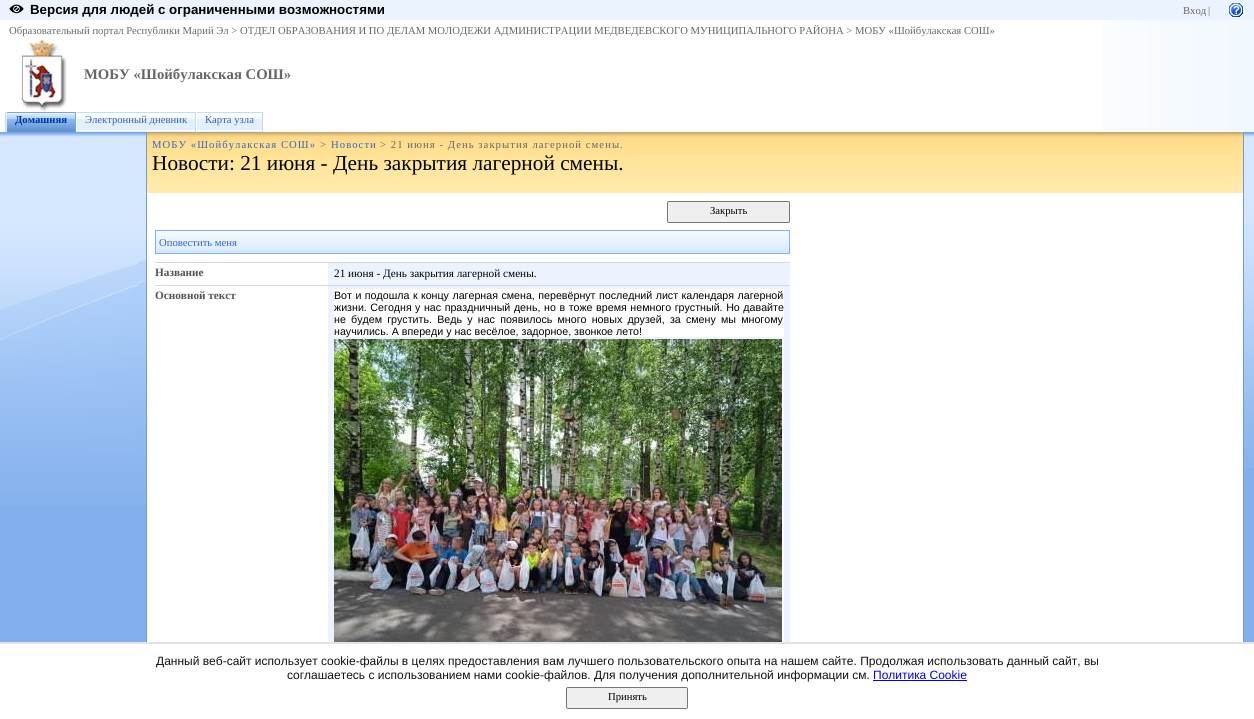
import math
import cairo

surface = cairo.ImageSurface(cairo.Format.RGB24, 1254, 719)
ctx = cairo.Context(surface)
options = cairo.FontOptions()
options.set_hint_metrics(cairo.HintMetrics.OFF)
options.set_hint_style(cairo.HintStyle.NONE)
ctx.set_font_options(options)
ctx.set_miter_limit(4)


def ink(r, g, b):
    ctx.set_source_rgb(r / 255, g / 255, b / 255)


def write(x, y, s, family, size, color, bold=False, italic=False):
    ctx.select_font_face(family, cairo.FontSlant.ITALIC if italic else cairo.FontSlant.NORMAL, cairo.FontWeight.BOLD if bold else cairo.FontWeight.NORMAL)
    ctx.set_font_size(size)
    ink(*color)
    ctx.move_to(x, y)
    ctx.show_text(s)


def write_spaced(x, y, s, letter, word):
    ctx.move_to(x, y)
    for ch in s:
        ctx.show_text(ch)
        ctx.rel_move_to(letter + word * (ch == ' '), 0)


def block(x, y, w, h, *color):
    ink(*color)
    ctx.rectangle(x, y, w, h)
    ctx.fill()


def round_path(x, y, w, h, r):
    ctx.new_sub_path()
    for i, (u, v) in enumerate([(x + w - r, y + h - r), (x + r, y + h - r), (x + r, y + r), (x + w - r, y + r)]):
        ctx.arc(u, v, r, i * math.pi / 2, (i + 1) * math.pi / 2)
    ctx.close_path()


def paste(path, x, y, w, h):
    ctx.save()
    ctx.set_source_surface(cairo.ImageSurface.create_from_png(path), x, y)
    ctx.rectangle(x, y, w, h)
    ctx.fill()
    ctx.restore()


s1 = dict(family="Liberation Sans", size=13.3, color=(0, 0, 0), bold=True)
s2 = dict(family="Liberation Serif", size=10.67, color=(102, 102, 102))
s3 = dict(family="Liberation Serif", size=14.7, color=(102, 102, 102), bold=True)
s4 = dict(family="Liberation Serif", size=10.67, color=(0, 51, 153), bold=True)
s5 = dict(family="Liberation Serif", size=10.67, color=(55, 100, 160))
s6 = dict(family="Liberation Serif", size=21.3, color=(0, 0, 0))
s7 = dict(family="Liberation Serif", size=10.67, color=(0, 0, 0))
s8 = dict(family="Liberation Serif", size=10.67, color=(57, 102, 191))
s9 = dict(family="Liberation Serif", size=11.25, color=(82, 82, 82), bold=True)
s10 = dict(family="Liberation Serif", size=11.25, color=(0, 0, 0))
s11 = dict(family="Liberation Sans", size=10.67, color=(0, 0, 0))
s12 = dict(family="Liberation Sans", size=12, color=(17, 17, 17))
s13 = dict(family="Liberation Sans", size=12, color=(0, 0, 238))

ink(255, 255, 255)
ctx.paint()
block(0, 0, 1254, 20, 235, 243, 255)
paste("pic1.png", 9, 4, 15, 10)
write(30, 14, "Версия для людей с ограниченными возможностями", **s1)
write(1183, 14, "Вход", **s2)
write(1208, 14, "|", **s2)
paste("pic2.png", 1229, 3, 14, 14)
paste("pic3.png", 1103, 20, 151, 92)
write(9, 34, "Образовательный портал Республики Марий Эл > ОТДЕЛ ОБРАЗОВАНИЯ И ПО ДЕЛАМ МОЛОДЕЖИ АДМИНИСТРАЦИИ МЕДВЕДЕВСКОГО МУНИЦИПАЛЬНОГО РАЙОНА > МОБУ «Шойбулакская СОШ»", **s2)
paste("pic4.png", 15, 40, 52, 72)
write(84, 79, "МОБУ «Шойбулакская СОШ»", **s3)
paste("pic5.png", 1103, 112, 151, 20)
block(5, 112, 1, 20, 194, 220, 255)
block(6, 112, 70, 1, 121, 167, 227)
block(75, 112, 1, 20, 121, 167, 227)
block(6, 112, 1, 20, 227, 239, 255)
block(7, 129, 68, 3, 101, 147, 207)
paste("pic6.png", 7, 113, 68, 16)
write(15, 123, "Домашняя", **s4)
block(76, 112, 187, 1, 194, 220, 255)
block(195, 112, 1, 20, 194, 220, 255)
block(76, 112, 1, 1, 255, 255, 255)
block(77, 131, 118, 1, 226, 239, 255)
paste("pic7.png", 77, 113, 118, 18)
write(85, 123, "Электронный дневник", **s5)
block(262, 112, 1, 20, 194, 220, 255)
block(196, 112, 1, 1, 255, 255, 255)
block(197, 131, 65, 1, 226, 239, 255)
paste("pic8.png", 197, 113, 65, 18)
write(205, 123, "Карта узла", **s5)
block(0, 137, 146, 56, 214, 232, 255)
paste("pic9.png", 0, 132, 138, 5)
paste("pic10.png", 138, 132, 8, 5)
block(146, 132, 1, 510, 111, 157, 217)
block(147, 184, 1096, 9, 255, 234, 173)
paste("pic11.png", 147, 132, 1096, 52)
ink(57, 102, 191)
write_spaced(152, 148, "МОБУ «Шойбулакская СОШ»", 1.05, 0)
ink(102, 102, 102)
write_spaced(320, 148, ">", 1.05, 0)
ink(57, 102, 191)
write_spaced(331, 148, "Новости", 1.05, 0)
ink(102, 102, 102)
write_spaced(380, 148, "> 21 июня - День закрытия лагерной смены.", 1.05, 0)
write(152, 170, "Новости: 21 июня - День закрытия лагерной смены.", **s6)
block(1244, 137, 10, 56, 214, 232, 255)
paste("pic12.png", 1244, 132, 10, 5)
block(1243, 132, 1, 510, 111, 157, 217)
block(0, 506, 146, 136, 131, 176, 236)
paste("pic13.png", 0, 193, 138, 313)
paste("pic14.png", 138, 193, 8, 313)
ink(239, 239, 239)
round_path(667.5, 201.5, 122, 21, 1.5)
ctx.fill_preserve()
ink(118, 118, 118)
ctx.set_line_width(1)
ctx.stroke()
write(710, 214, "Закрыть", **s7)
block(156, 250, 633, 3, 214, 232, 255)
paste("pic15.png", 156, 231, 633, 19)
block(155, 230, 635, 1, 131, 176, 236)
block(789, 230, 1, 24, 131, 176, 236)
block(155, 253, 635, 1, 131, 176, 236)
block(155, 230, 1, 24, 131, 176, 236)
write(159, 246, "Оповестить меня", **s8)
block(155, 262, 635, 1, 216, 216, 216)
write(155, 276, "Название", **s9)
block(328, 263, 462, 22, 235, 243, 255)
write(334, 277, "21 июня - День закрытия лагерной смены.", **s10)
block(155, 285, 635, 1, 216, 216, 216)
write(155, 299, "Основной текст", **s9)
block(328, 286, 462, 356, 235, 243, 255)
block(334, 289, 450, 48, 255, 255, 255)
ctx.select_font_face("Liberation Sans")
ctx.set_font_size(10.67)
ink(0, 0, 0)
write_spaced(334, 299, "Вот и подошла к концу лагерная смена, перевёрнут последний лист календаря лагерной", 0, 0.5)
write_spaced(334, 311, "жизни. Сегодня", 0, 0.6)
write_spaced(415, 311, "у нас праздничный день, но в тоже время немного грустный. Но давайте", 0, 0.6)
write_spaced(334, 323, "не будем грустить. Ведь у нас появилось много новых друзей, за смену мы многому", 0, 2.25)
write(334, 335, "научились. А впереди у нас весёлое, задорное, звонкое лето!", **s11)
block(782, 339, 2, 303, 255, 255, 255)
paste("pic16.png", 334, 339, 448, 303)
block(1244, 468, 10, 174, 131, 176, 236)
paste("pic17.png", 1244, 193, 10, 275)
block(0, 642, 1254, 2, 227, 227, 227)
write(156, 665, "Данный веб-сайт использует cookie-файлы в целях предоставления вам лучшего пользовательского опыта на нашем сайте. Продолжая использовать данный сайт, вы", **s12)
write(287, 679, "соглашаетесь с использованием нами cookie-файлов. Для получения дополнительной информации см.", **s12)
write(873, 679, "Политика Cookie", **s13)
block(873, 680, 94, 1, 0, 0, 238)
ink(239, 239, 239)
round_path(566.5, 687.5, 121, 21, 1.5)
ctx.fill_preserve()
ink(118, 118, 118)
ctx.stroke()
write(608, 700, "Принять", **s7)
surface.write_to_png("screenshot.png")
